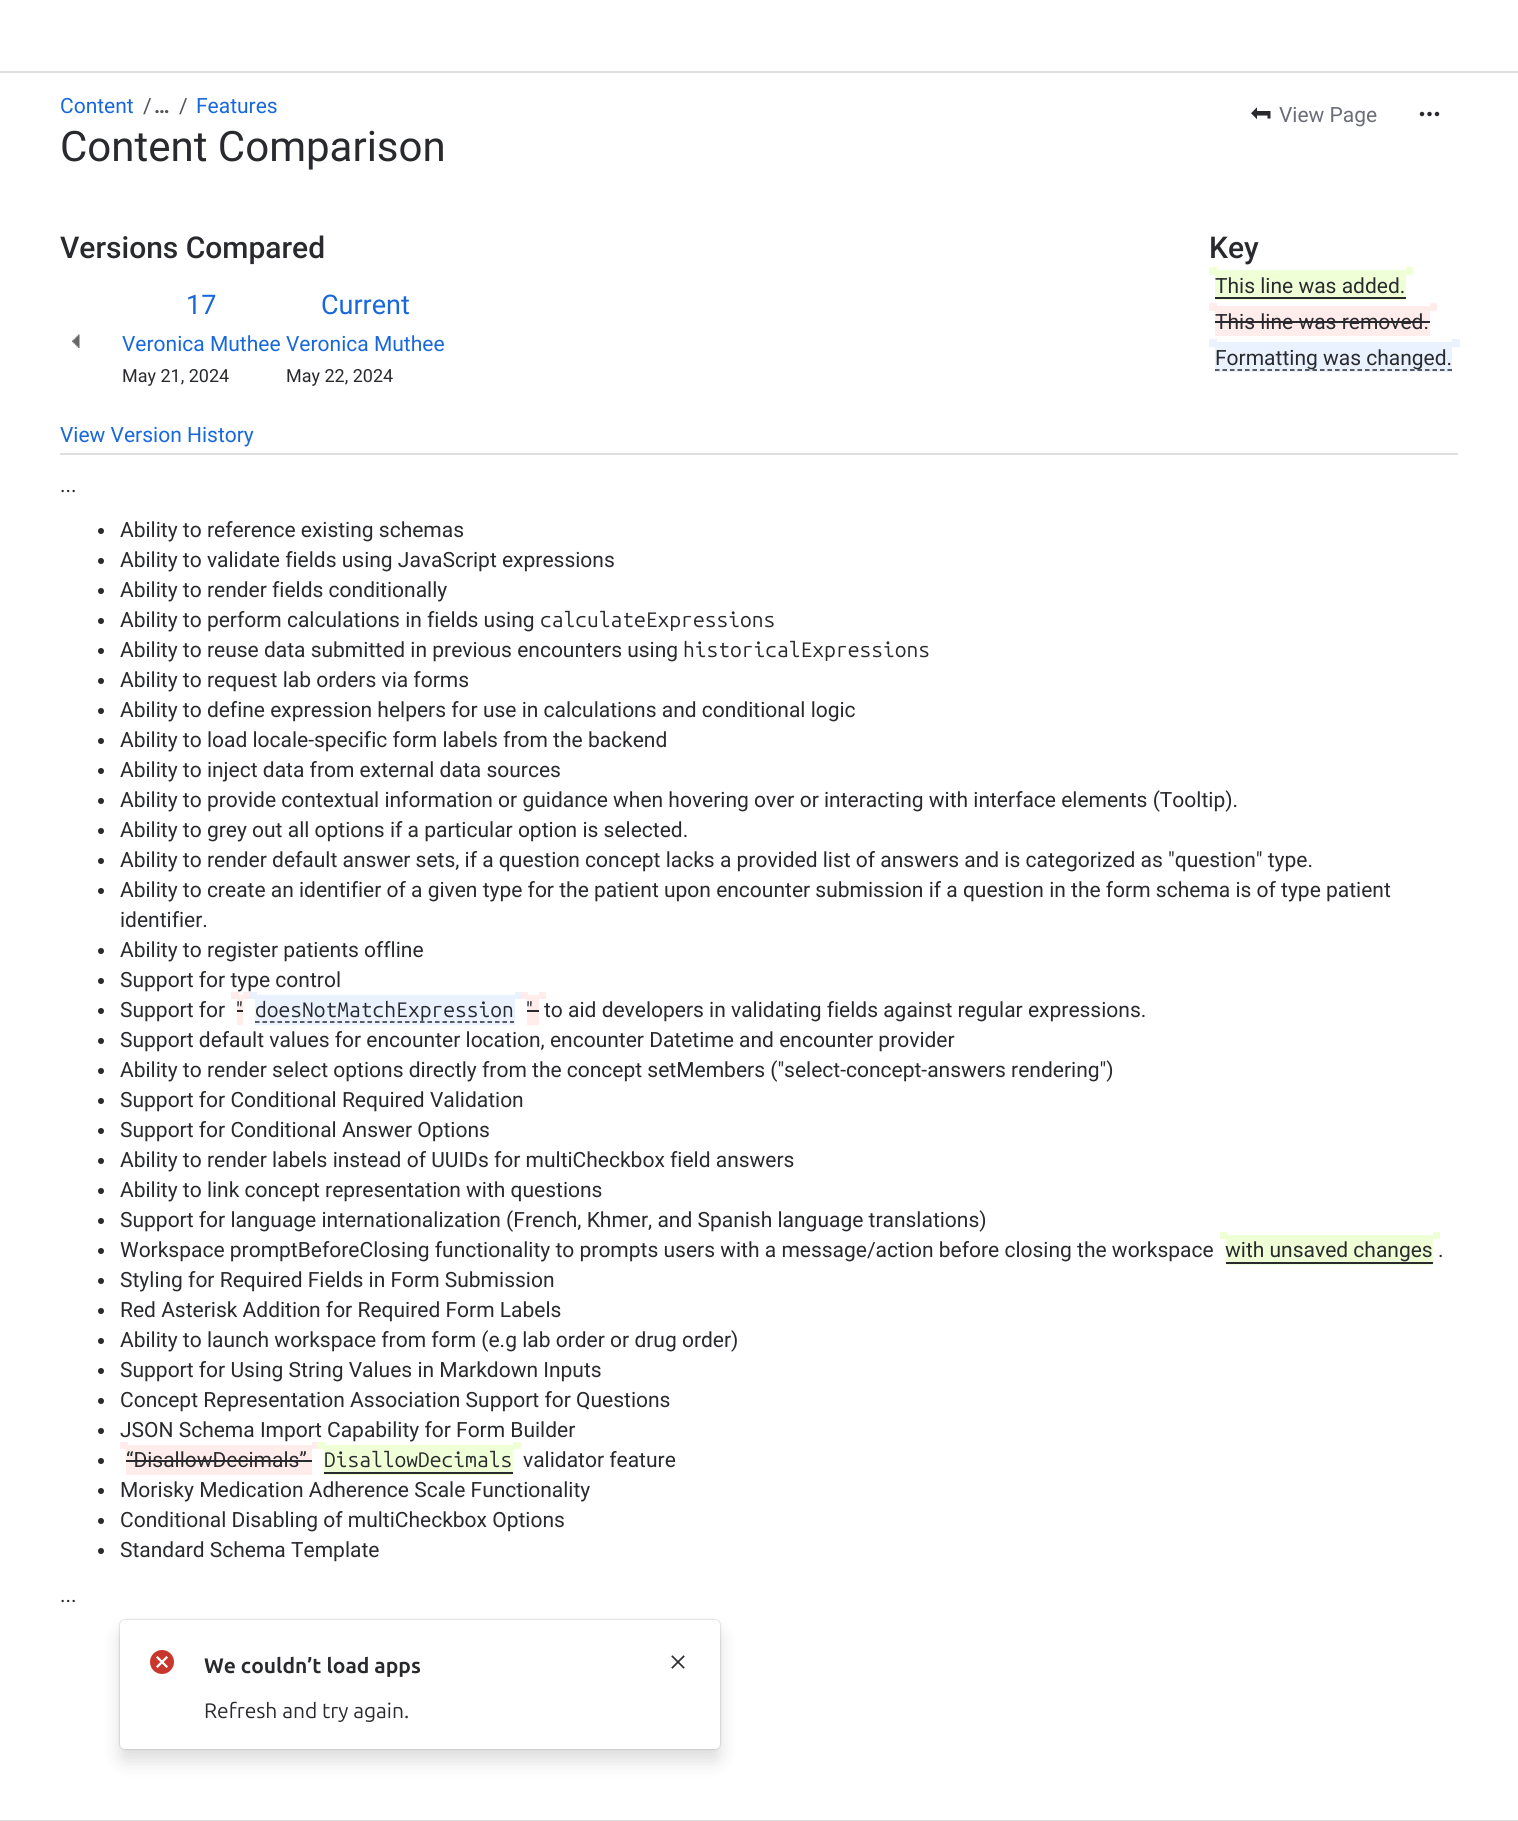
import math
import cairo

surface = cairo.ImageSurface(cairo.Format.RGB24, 1518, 1821)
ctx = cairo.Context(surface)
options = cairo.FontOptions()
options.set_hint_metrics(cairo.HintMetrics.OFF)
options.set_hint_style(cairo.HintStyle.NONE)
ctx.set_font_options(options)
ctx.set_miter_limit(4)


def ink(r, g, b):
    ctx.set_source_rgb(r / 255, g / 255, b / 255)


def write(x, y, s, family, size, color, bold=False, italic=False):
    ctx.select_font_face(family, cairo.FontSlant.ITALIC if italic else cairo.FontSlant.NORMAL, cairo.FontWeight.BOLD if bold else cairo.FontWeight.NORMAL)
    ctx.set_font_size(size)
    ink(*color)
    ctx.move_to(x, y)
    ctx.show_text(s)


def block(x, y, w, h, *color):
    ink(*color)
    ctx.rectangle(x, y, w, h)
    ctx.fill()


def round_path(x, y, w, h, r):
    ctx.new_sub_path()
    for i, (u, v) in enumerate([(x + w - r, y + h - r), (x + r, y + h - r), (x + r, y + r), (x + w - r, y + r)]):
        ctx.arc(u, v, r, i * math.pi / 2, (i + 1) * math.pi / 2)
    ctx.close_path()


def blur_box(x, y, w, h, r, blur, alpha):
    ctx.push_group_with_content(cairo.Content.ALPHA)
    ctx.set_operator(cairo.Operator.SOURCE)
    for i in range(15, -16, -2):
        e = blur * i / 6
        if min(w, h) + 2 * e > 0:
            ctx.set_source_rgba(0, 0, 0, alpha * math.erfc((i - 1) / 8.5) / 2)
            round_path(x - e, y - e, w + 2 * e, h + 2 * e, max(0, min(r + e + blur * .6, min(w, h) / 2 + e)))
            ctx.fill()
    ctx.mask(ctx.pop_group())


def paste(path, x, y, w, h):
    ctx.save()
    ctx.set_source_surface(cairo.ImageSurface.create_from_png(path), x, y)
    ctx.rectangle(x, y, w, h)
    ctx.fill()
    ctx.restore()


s1 = dict(family="Roboto", size=21, color=(24, 104, 219))
s2 = dict(family="Roboto", size=21, color=(80, 82, 88))
s3 = dict(family="Roboto", size=21, color=(80, 82, 88), bold=True)
s4 = dict(family="Roboto", size=42, color=(41, 42, 46))
s5 = dict(family="Roboto", size=21, color=(107, 110, 118))
s6 = dict(family="Roboto Medium", size=30, color=(41, 42, 46))
s7 = dict(family="Roboto", size=21, color=(41, 42, 46))
s8 = dict(family="Roboto", size=27, color=(24, 104, 219))
s9 = dict(family="Roboto", size=18, color=(41, 42, 46))
s10 = dict(family="Ubuntu Mono", size=21, color=(41, 42, 46))
s11 = dict(family="Ubuntu", size=21, color=(41, 42, 46), bold=True)
s12 = dict(family="Ubuntu", size=21, color=(41, 42, 46))

ink(255, 255, 255)
ctx.paint()
block(0, 71, 1518, 2, 221, 222, 221)
block(0, 1820, 1518, 1, 221, 222, 221)
write(60, 113, "Content", **s1)
write(143, 113, "/", **s2)
write(154, 113, "…", **s3)
write(179, 113, "/", **s2)
write(196, 113, "Features", **s1)
write(60, 161, "Content Comparison", **s4)
paste("pic1.png", 1251, 107, 20, 13)
write(1279, 122, "View Page", **s5)
paste("pic2.png", 1419, 111, 21, 6)
block(60, 453, 1398, 2, 221, 222, 221)
write(60, 258, "Versions Compared", **s6)
write(1209, 258, "Key", **s6)
block(1209, 267, 8, 8, 239, 255, 214)
block(1215, 270, 191, 30, 239, 255, 214)
write(1215, 293, "This line was added.", **s7)
block(1406, 267, 7, 8, 239, 255, 214)
block(1215, 297, 191, 2, 41, 42, 46)
block(1209, 303, 8, 8, 255, 236, 235)
block(1215, 306, 215, 30, 255, 236, 235)
write(1215, 329, "This line was removed.", **s7)
block(1430, 303, 7, 8, 255, 236, 235)
block(1215, 321, 215, 2, 41, 42, 46)
block(1209, 339, 8, 8, 233, 242, 254)
block(1215, 342, 237, 30, 233, 242, 254)
ctx.new_path()
ctx.move_to(1215, 370)
ctx.line_to(1452, 370)
ink(41, 42, 46)
ctx.set_line_width(1.5)
ctx.set_dash([4.5, 3])
ctx.stroke()
write(1215, 365, "Formatting was changed.", **s7)
block(1452, 339, 8, 8, 233, 242, 254)
write(186, 314, "17", **s8)
write(321, 314, "Current", **s8)
write(122, 351, "Veronica Muthee", **s1)
write(286, 351, "Veronica Muthee", **s1)
write(122, 382, "May 21, 2024", **s9)
write(286, 382, "May 22, 2024", **s9)
paste("pic3.png", 72, 334, 8, 14)
write(60, 442, "View Version History", **s1)
write(60, 492, "...", **s7)
ctx.new_path()
ctx.arc(101, 531, 3, 0, 2 * math.pi)
ctx.fill()
write(120, 537, "Ability to reference existing schemas", **s7)
ctx.new_path()
ctx.arc(101, 561, 3, 0, 2 * math.pi)
ctx.fill()
write(120, 567, "Ability to validate fields using JavaScript expressions", **s7)
ctx.new_path()
ctx.arc(101, 591, 3, 0, 2 * math.pi)
ctx.fill()
write(120, 597, "Ability to render fields conditionally", **s7)
ctx.new_path()
ctx.arc(101, 621, 3, 0, 2 * math.pi)
ctx.fill()
write(120, 627, "Ability to perform calculations in fields using", **s7)
write(540, 627, "calculateExpressions", **s10)
ctx.new_path()
ctx.arc(101, 651, 3, 0, 2 * math.pi)
ctx.fill()
write(120, 657, "Ability to reuse data submitted in previous encounters using", **s7)
write(683, 657, "historicalExpressions", **s10)
ctx.new_path()
ctx.arc(101, 681, 3, 0, 2 * math.pi)
ctx.fill()
write(120, 687, "Ability to request lab orders via forms", **s7)
ctx.new_path()
ctx.arc(101, 711, 3, 0, 2 * math.pi)
ctx.fill()
write(120, 717, "Ability to define expression helpers for use in calculations and conditional logic", **s7)
ctx.new_path()
ctx.arc(101, 741, 3, 0, 2 * math.pi)
ctx.fill()
write(120, 747, "Ability to load locale-specific form labels from the backend", **s7)
ctx.new_path()
ctx.arc(101, 771, 3, 0, 2 * math.pi)
ctx.fill()
write(120, 777, "Ability to inject data from external data sources", **s7)
ctx.new_path()
ctx.arc(101, 801, 3, 0, 2 * math.pi)
ctx.fill()
write(120, 807, "Ability to provide contextual information or guidance when hovering over or interacting with interface elements (Tooltip).", **s7)
ctx.new_path()
ctx.arc(101, 831, 3, 0, 2 * math.pi)
ctx.fill()
write(120, 837, "Ability to grey out all options if a particular option is selected.", **s7)
ctx.new_path()
ctx.arc(101, 861, 3, 0, 2 * math.pi)
ctx.fill()
write(120, 867, "Ability to render default answer sets, if a question concept lacks a provided list of answers and is categorized as \"question\" type.", **s7)
ctx.new_path()
ctx.arc(101, 891, 3, 0, 2 * math.pi)
ctx.fill()
write(120, 897, "Ability to create an identifier of a given type for the patient upon encounter submission if a question in the form schema is of type patient", **s7)
write(120, 927, "identifier.", **s7)
ctx.new_path()
ctx.arc(101, 951, 3, 0, 2 * math.pi)
ctx.fill()
write(120, 957, "Ability to register patients offline", **s7)
ctx.new_path()
ctx.arc(101, 981, 3, 0, 2 * math.pi)
ctx.fill()
write(120, 987, "Support for type control", **s7)
ctx.new_path()
ctx.arc(101, 1011, 3, 0, 2 * math.pi)
ctx.fill()
write(120, 1017, "Support for", **s7)
block(231, 992, 8, 7, 255, 236, 235)
block(237, 995, 6, 30, 255, 236, 235)
write(236, 1017, "\"", **s7)
block(243, 992, 8, 7, 255, 236, 235)
block(237, 1010, 6, 2, 41, 42, 46)
block(249, 992, 8, 7, 233, 242, 254)
block(255, 995, 260, 30, 233, 242, 254)
write(255, 1017, "doesNotMatchExpression", **s10)
block(515, 992, 7, 7, 233, 242, 254)
ctx.new_path()
ctx.move_to(255, 1022)
ctx.line_to(514, 1022)
ink(41, 42, 46)
ctx.stroke()
block(521, 992, 7, 7, 255, 236, 235)
block(527, 995, 12, 30, 255, 236, 235)
write(526, 1017, "\"", **s7)
block(539, 992, 7, 7, 255, 236, 235)
block(527, 1010, 12, 2, 41, 42, 46)
write(544, 1017, "to aid developers in validating fields against regular expressions.", **s7)
ctx.new_path()
ctx.arc(101, 1041, 3, 0, 2 * math.pi)
ctx.fill()
write(120, 1047, "Support default values for encounter location, encounter Datetime and encounter provider", **s7)
ctx.new_path()
ctx.arc(101, 1071, 3, 0, 2 * math.pi)
ctx.fill()
write(120, 1077, "Ability to render select options directly from the concept setMembers (\"select-concept-answers rendering\")", **s7)
ctx.new_path()
ctx.arc(101, 1101, 3, 0, 2 * math.pi)
ctx.fill()
write(120, 1107, "Support for Conditional Required Validation", **s7)
ctx.new_path()
ctx.arc(101, 1131, 3, 0, 2 * math.pi)
ctx.fill()
write(120, 1137, "Support for Conditional Answer Options", **s7)
ctx.new_path()
ctx.arc(101, 1161, 3, 0, 2 * math.pi)
ctx.fill()
write(120, 1167, "Ability to render labels instead of UUIDs for multiCheckbox field answers", **s7)
ctx.new_path()
ctx.arc(101, 1191, 3, 0, 2 * math.pi)
ctx.fill()
write(120, 1197, "Ability to link concept representation with questions", **s7)
ctx.new_path()
ctx.arc(101, 1221, 3, 0, 2 * math.pi)
ctx.fill()
write(120, 1227, "Support for language internationalization (French, Khmer, and Spanish language translations)", **s7)
ctx.new_path()
ctx.arc(101, 1251, 3, 0, 2 * math.pi)
ctx.fill()
write(120, 1257, "Workspace promptBeforeClosing functionality to prompts users with a message/action before closing the workspace", **s7)
block(1220, 1232, 7, 7, 239, 255, 214)
block(1226, 1235, 207, 30, 239, 255, 214)
write(1225, 1257, "with unsaved changes", **s7)
block(1433, 1232, 7, 7, 239, 255, 214)
block(1226, 1262, 207, 2, 41, 42, 46)
write(1438, 1257, ".", **s7)
ctx.new_path()
ctx.arc(101, 1281, 3, 0, 2 * math.pi)
ctx.fill()
write(120, 1287, "Styling for Required Fields in Form Submission", **s7)
ctx.new_path()
ctx.arc(101, 1311, 3, 0, 2 * math.pi)
ctx.fill()
write(120, 1317, "Red Asterisk Addition for Required Form Labels", **s7)
ctx.new_path()
ctx.arc(101, 1341, 3, 0, 2 * math.pi)
ctx.fill()
write(120, 1347, "Ability to launch workspace from form (e.g lab order or drug order)", **s7)
ctx.new_path()
ctx.arc(101, 1371, 3, 0, 2 * math.pi)
ctx.fill()
write(120, 1377, "Support for Using String Values in Markdown Inputs", **s7)
ctx.new_path()
ctx.arc(101, 1401, 3, 0, 2 * math.pi)
ctx.fill()
write(120, 1407, "Concept Representation Association Support for Questions", **s7)
ctx.new_path()
ctx.arc(101, 1431, 3, 0, 2 * math.pi)
ctx.fill()
write(120, 1437, "JSON Schema Import Capability for Form Builder", **s7)
ctx.new_path()
ctx.arc(101, 1461, 3, 0, 2 * math.pi)
ctx.fill()
block(120, 1442, 8, 7, 255, 236, 235)
block(126, 1445, 186, 30, 255, 236, 235)
write(126, 1467, "“DisallowDecimals”", **s7)
block(312, 1442, 8, 7, 255, 236, 235)
block(126, 1460, 186, 2, 41, 42, 46)
block(318, 1442, 8, 7, 239, 255, 214)
block(324, 1445, 189, 30, 239, 255, 214)
write(324, 1467, "DisallowDecimals", **s10)
block(513, 1442, 8, 7, 239, 255, 214)
block(324, 1472, 189, 2, 41, 42, 46)
write(523, 1467, "validator feature", **s7)
ctx.new_path()
ctx.arc(101, 1491, 3, 0, 2 * math.pi)
ctx.fill()
write(120, 1497, "Morisky Medication Adherence Scale Functionality", **s7)
ctx.new_path()
ctx.arc(101, 1521, 3, 0, 2 * math.pi)
ctx.fill()
write(120, 1527, "Conditional Disabling of multiCheckbox Options", **s7)
ctx.new_path()
ctx.arc(101, 1551, 3, 0, 2 * math.pi)
ctx.fill()
write(120, 1557, "Standard Schema Template", **s7)
write(60, 1602, "...", **s7)
ink(30, 31, 33)
blur_box(120, 1620, 600, 129, 5, 1, 0.31)
blur_box(120, 1632, 600, 129, 5, 9, 0.15)
ink(255, 255, 255)
round_path(120, 1620, 600, 129, 5)
ctx.fill()
paste("pic4.png", 150, 1650, 24, 24)
write(204, 1673, "We couldn’t load apps", **s11)
paste("pic5.png", 671, 1655, 14, 14)
write(204, 1718, "Refresh and try again.", **s12)
surface.write_to_png("screenshot.png")
